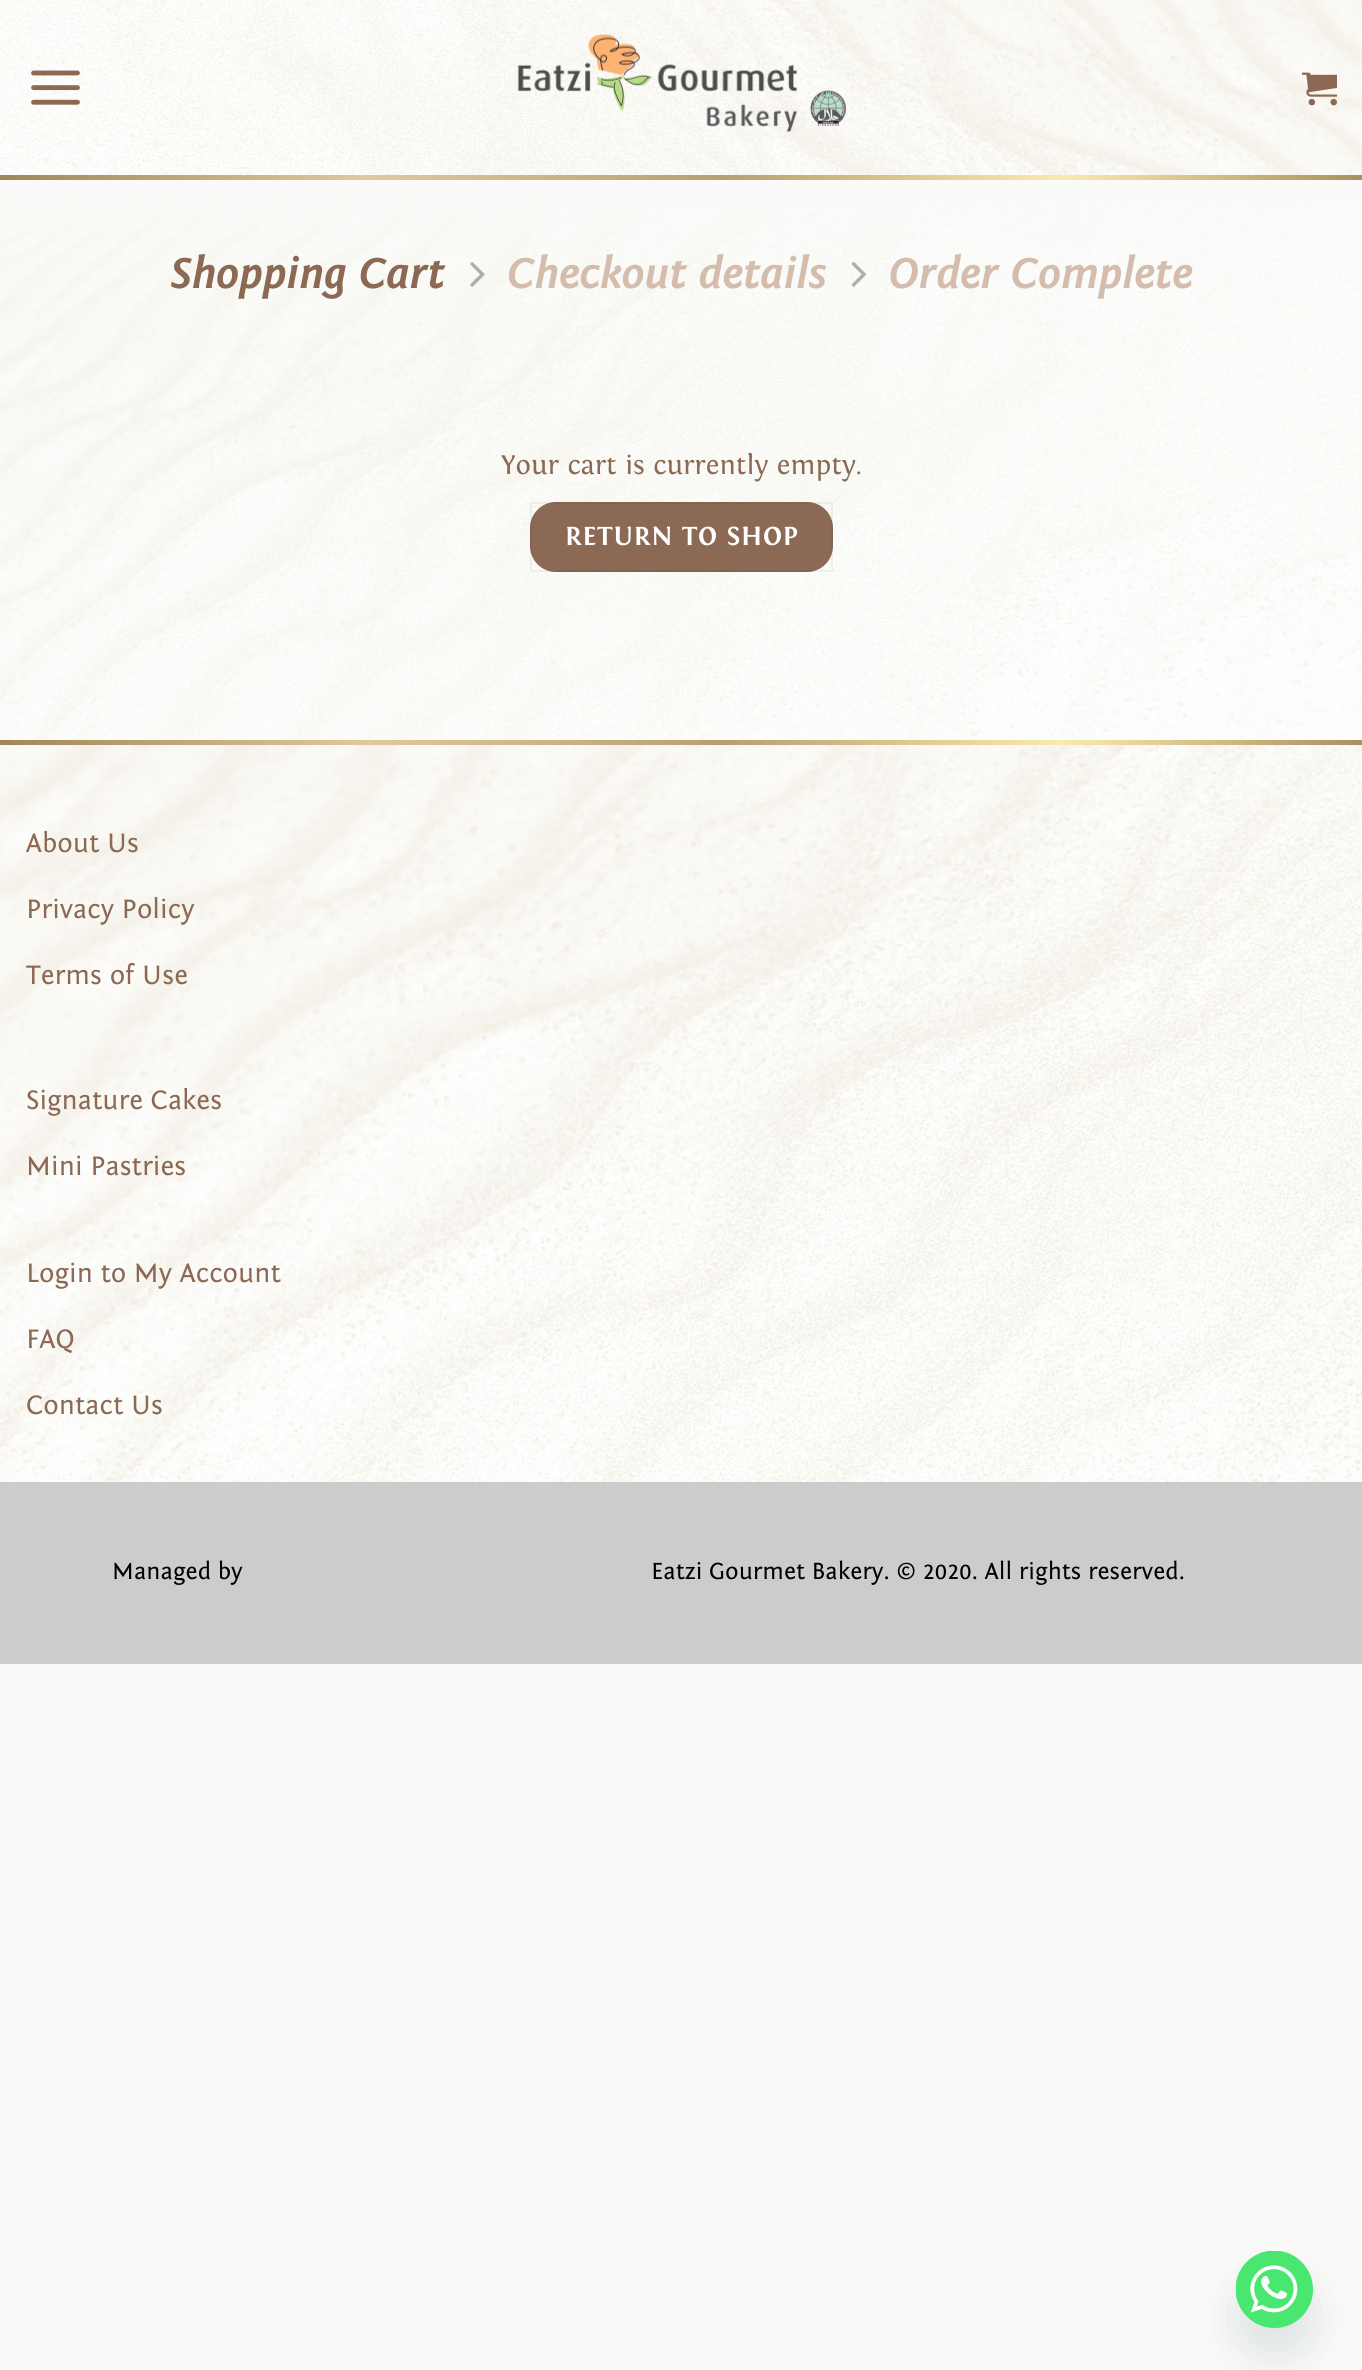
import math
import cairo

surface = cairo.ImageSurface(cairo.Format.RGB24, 1362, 2370)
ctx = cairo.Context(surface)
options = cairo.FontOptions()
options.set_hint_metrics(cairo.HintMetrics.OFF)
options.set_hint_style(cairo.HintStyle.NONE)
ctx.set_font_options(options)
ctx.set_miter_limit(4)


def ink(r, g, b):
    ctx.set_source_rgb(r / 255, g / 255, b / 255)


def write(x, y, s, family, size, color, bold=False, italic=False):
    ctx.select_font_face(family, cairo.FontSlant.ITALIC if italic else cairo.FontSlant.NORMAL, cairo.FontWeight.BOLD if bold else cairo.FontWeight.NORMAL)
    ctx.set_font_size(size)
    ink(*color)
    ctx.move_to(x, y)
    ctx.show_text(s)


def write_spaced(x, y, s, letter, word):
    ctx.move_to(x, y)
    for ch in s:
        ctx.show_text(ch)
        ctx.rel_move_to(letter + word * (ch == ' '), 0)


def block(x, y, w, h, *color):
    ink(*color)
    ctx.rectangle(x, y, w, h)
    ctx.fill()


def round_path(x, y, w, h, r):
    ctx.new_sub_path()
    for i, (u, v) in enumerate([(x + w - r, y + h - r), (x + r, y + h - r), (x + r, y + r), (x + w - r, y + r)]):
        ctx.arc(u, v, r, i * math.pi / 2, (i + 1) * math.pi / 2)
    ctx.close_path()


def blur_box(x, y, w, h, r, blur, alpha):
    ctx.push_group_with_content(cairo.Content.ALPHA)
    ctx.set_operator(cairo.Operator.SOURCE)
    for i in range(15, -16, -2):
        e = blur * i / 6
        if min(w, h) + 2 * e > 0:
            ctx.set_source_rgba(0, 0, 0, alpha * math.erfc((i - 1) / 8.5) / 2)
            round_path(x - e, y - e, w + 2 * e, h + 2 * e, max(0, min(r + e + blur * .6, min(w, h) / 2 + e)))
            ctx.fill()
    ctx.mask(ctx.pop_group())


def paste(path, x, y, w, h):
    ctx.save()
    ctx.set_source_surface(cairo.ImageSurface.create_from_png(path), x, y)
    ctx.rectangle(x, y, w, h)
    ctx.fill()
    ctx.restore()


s1 = dict(family="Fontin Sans", size=44.75, color=(139, 105, 84), bold=True, italic=True)
s2 = dict(family="Fontin Sans", size=44.75, color=(213, 189, 174), bold=True, italic=True)
s3 = dict(family="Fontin", size=28, color=(139, 105, 84))
s4 = dict(family="Fontin Sans", size=28, color=(139, 105, 84))
s5 = dict(family="Fontin Sans", size=24.5, color=(0, 0, 0))

ink(250, 250, 248)
ctx.paint()
paste("pic1.png", 0, 0, 1362, 175)
paste("pic2.png", 31, 70, 49, 35)
paste("pic3.png", 517, 34, 330, 98)
paste("pic4.png", 1302, 72, 35, 34)
gradient = cairo.LinearGradient(0, 178, 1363, 178)
gradient.add_color_stop_rgba(0, 0.635, 0.525, 0.341, 1)
gradient.add_color_stop_rgba(0.27, 0.886, 0.784, 0.612, 1)
gradient.add_color_stop_rgba(0.53, 0.725, 0.62, 0.439, 1)
gradient.add_color_stop_rgba(0.78, 0.984, 0.918, 0.686, 1)
gradient.add_color_stop_rgba(1, 0.667, 0.561, 0.376, 1)
ctx.set_source(gradient)
ctx.rectangle(0, 175, 1362, 5)
ctx.fill()
paste("pic5.png", 0, 203, 1362, 537)
write(171, 288, "Shopping Cart", **s1)
paste("pic6.png", 470, 262, 15, 25)
write(507, 288, "Checkout details", **s2)
paste("pic7.png", 851, 262, 15, 25)
write(889, 288, "Order Complete", **s2)
write(501, 474, "Your cart is currently empty.", **s3)
round_path(530, 502, 303, 70, 26)
ctx.fill()
ctx.rectangle(531, 503, 301, 68)
ctx.set_source_rgba(0, 0, 0, 0.05)
ctx.stroke()
ctx.select_font_face("Fontin", cairo.FontSlant.NORMAL, cairo.FontWeight.BOLD)
ctx.set_font_size(27.25)
ink(255, 255, 255)
write_spaced(565, 545, "RETURN TO SHOP", 0.75, 0)
paste("pic8.png", 0, 745, 1362, 920)
gradient = cairo.LinearGradient(0, 743, 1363, 743)
gradient.add_color_stop_rgba(0, 0.635, 0.525, 0.341, 1)
gradient.add_color_stop_rgba(0.27, 0.886, 0.784, 0.612, 1)
gradient.add_color_stop_rgba(0.53, 0.725, 0.62, 0.439, 1)
gradient.add_color_stop_rgba(0.78, 0.984, 0.918, 0.686, 1)
gradient.add_color_stop_rgba(1, 0.667, 0.561, 0.376, 1)
ctx.set_source(gradient)
ctx.rectangle(0, 740, 1362, 5)
ctx.fill()
write(26, 852, "About Us", **s4)
write(26, 918, "Privacy Policy", **s4)
write(26, 984, "Terms of Use", **s4)
write(26, 1109, "Signature Cakes", **s4)
write(26, 1175, "Mini Pastries", **s4)
write(26, 1282, "Login to My Account", **s4)
write(26, 1348, "FAQ", **s4)
write(26, 1414, "Contact Us", **s4)
block(0, 1482, 1362, 182, 204, 204, 204)
write(112, 1579, "Managed by", **s5)
write(651, 1579, "Eatzi Gourmet Bakery. © 2020. All rights reserved.", **s5)
ink(73, 104, 126)
blur_box(1236, 2279, 77, 77, 38.5, 21, 0.16)
ink(73, 230, 112)
ctx.arc(1274.5, 2289.5, 38.5, 0, 2 * math.pi)
ctx.fill()
paste("pic9.png", 1236, 2251, 77, 77)
surface.write_to_png("screenshot.png")
